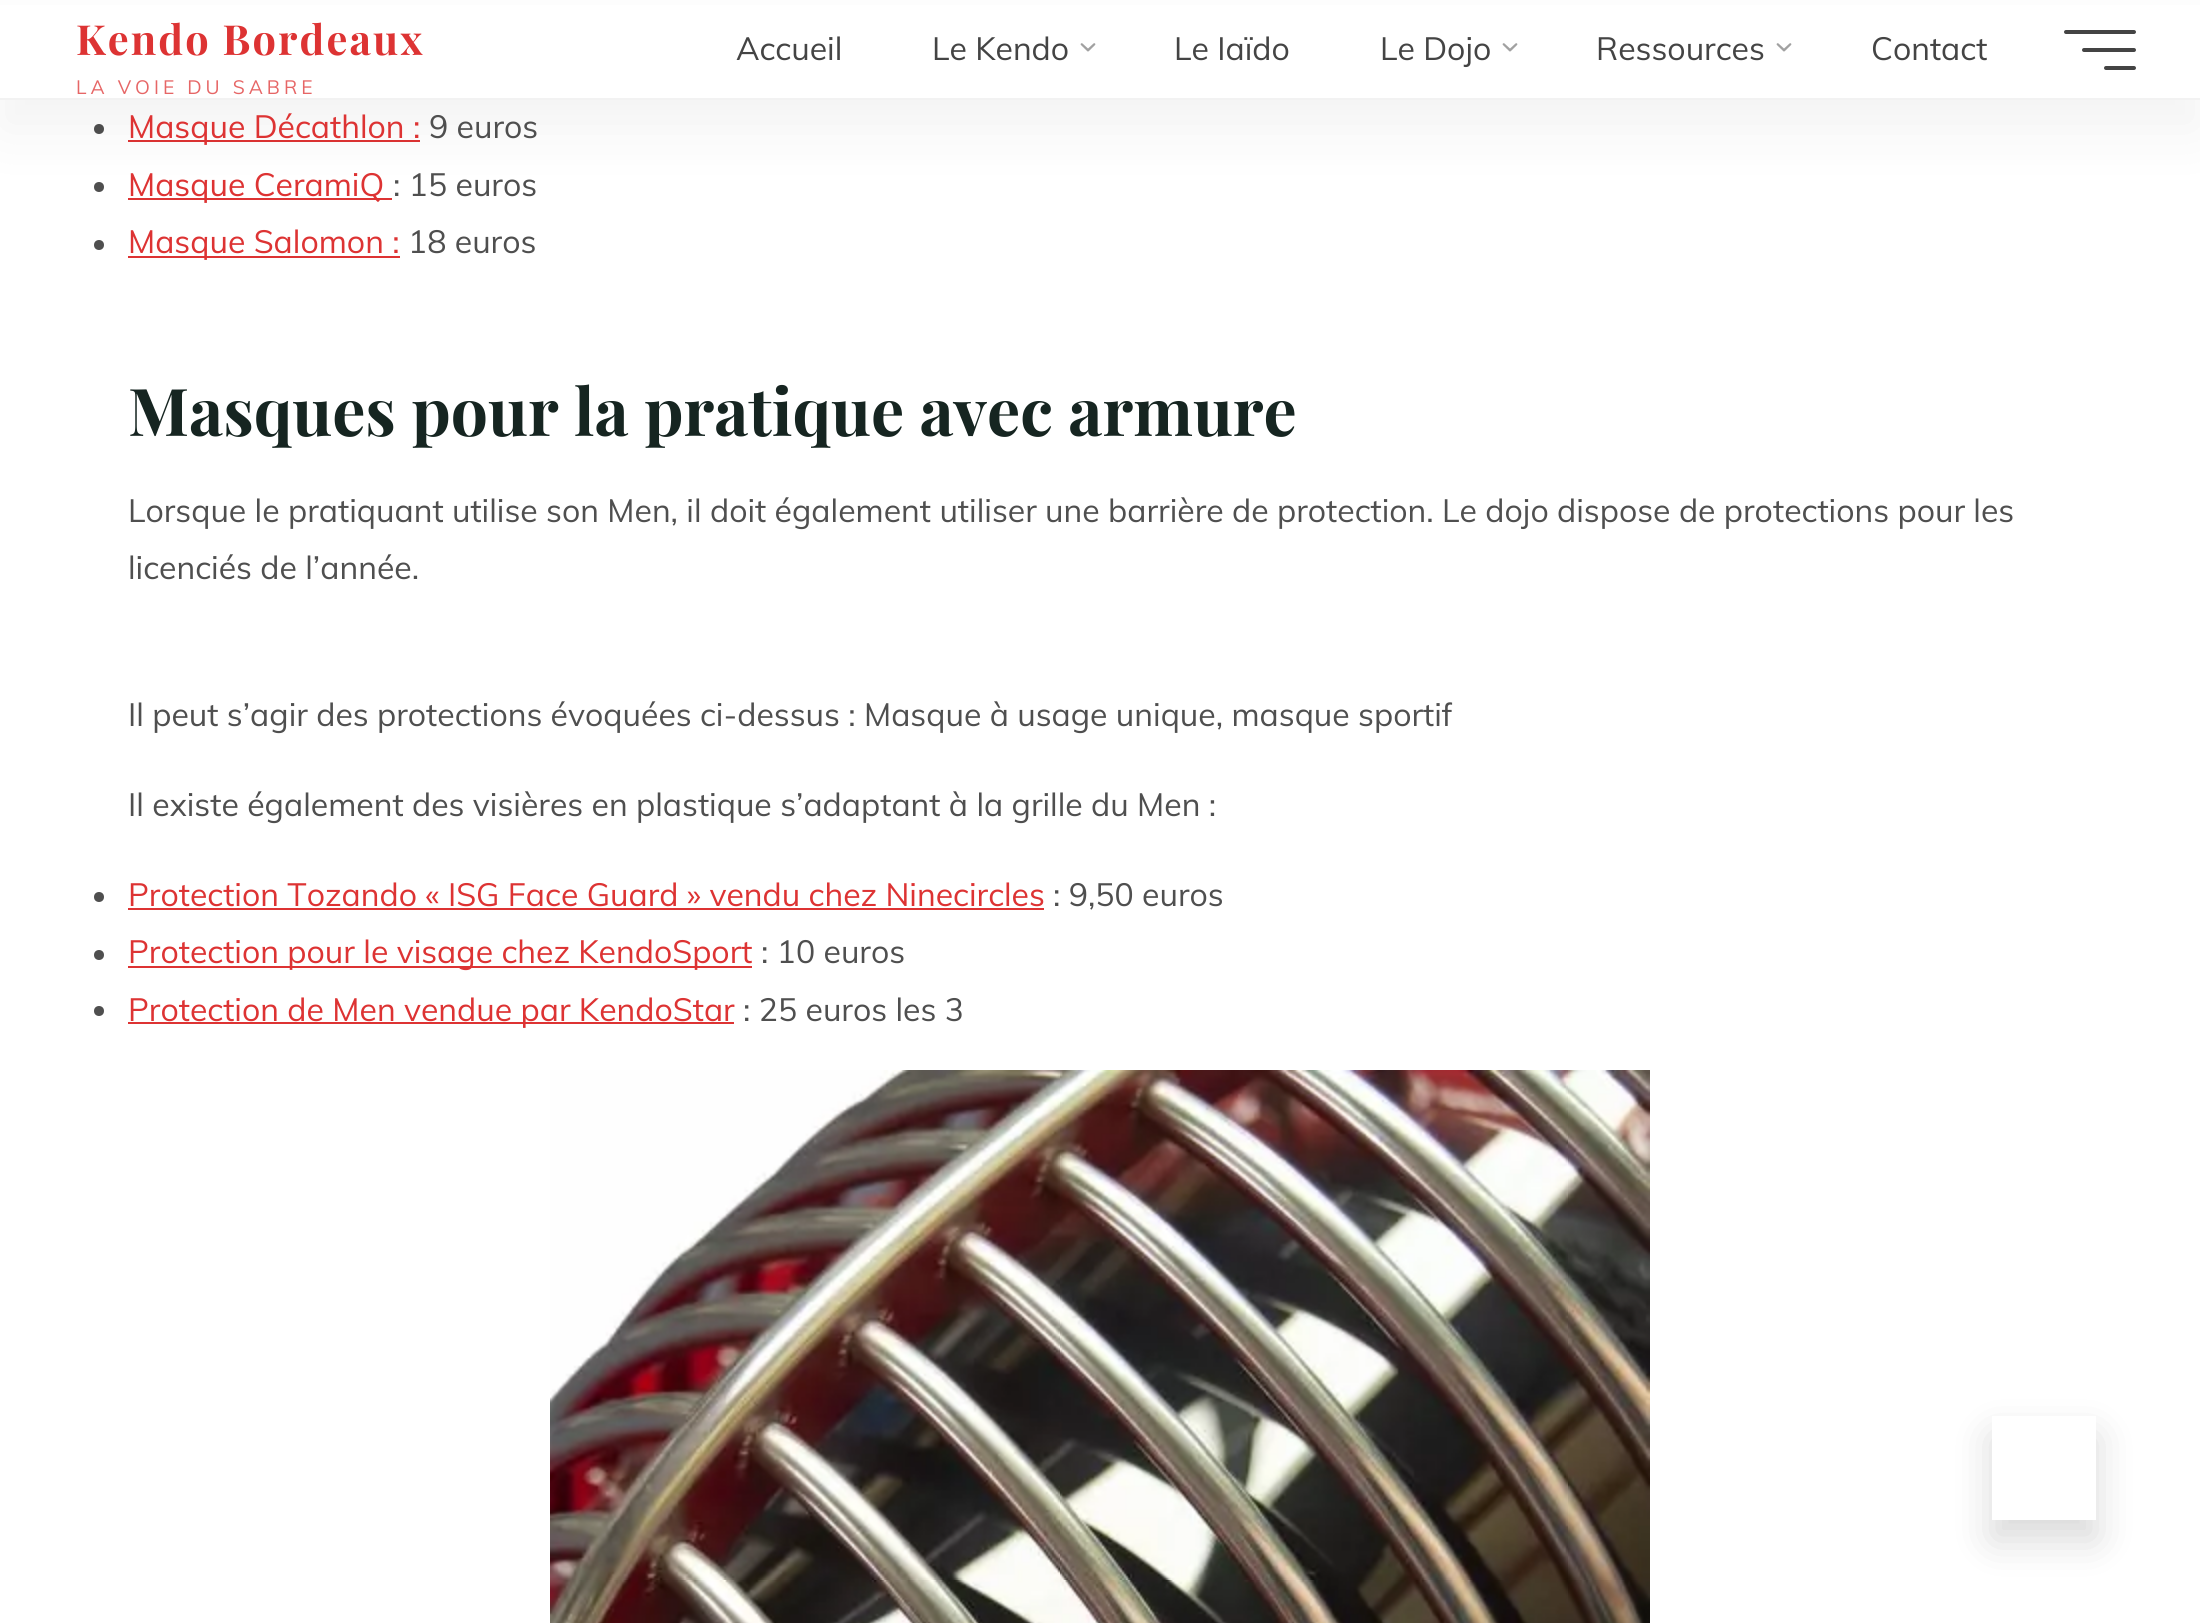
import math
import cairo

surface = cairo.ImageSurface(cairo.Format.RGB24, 2200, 1623)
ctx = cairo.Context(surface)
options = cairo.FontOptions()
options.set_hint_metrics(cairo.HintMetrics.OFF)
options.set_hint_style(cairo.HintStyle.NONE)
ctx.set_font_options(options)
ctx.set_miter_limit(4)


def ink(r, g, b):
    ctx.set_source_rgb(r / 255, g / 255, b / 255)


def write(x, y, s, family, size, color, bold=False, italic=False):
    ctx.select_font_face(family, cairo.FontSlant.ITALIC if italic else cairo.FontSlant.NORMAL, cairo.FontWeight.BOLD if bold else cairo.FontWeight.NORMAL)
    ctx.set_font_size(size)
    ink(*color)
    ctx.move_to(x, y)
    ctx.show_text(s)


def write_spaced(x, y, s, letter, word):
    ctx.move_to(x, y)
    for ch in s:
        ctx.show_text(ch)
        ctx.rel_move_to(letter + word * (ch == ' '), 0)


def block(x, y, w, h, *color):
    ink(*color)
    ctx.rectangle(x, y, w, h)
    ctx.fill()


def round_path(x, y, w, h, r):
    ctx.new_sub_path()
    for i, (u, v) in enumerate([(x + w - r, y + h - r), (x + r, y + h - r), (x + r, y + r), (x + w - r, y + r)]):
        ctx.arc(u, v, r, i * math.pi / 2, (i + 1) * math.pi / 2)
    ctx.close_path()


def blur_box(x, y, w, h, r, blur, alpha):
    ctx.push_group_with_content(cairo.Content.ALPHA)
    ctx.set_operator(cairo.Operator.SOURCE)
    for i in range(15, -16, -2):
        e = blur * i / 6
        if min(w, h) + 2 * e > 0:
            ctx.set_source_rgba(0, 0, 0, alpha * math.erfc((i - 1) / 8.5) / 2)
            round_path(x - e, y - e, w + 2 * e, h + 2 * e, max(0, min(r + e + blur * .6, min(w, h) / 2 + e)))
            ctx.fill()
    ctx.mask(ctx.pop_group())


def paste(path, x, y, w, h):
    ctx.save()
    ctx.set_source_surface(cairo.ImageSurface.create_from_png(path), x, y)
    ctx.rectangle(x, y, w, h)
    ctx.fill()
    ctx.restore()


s1 = dict(family="Muli", size=32, color=(68, 68, 68))
s2 = dict(family="Muli", size=32, color=(221, 51, 51))
s3 = dict(family="Muli", size=32, color=(79, 79, 79))
s4 = dict(family="Playfair Display", size=65.9, color=(22, 37, 33), bold=True)

ink(255, 255, 255)
ctx.paint()
ink(79, 79, 79)
ctx.arc(99, 129, 5, 0, 2 * math.pi)
ctx.fill()
block(128, 140, 292, 2, 221, 51, 51)
ink(79, 79, 79)
ctx.arc(99, 187, 5, 0, 2 * math.pi)
ctx.fill()
block(128, 198, 264, 2, 221, 51, 51)
ink(0, 0, 0)
blur_box(0, 30, 2200, 100, 0, 30, 0.05)
block(0, 5, 2200, 93, 255, 255, 255)
block(0, 98, 2200, 2, 242, 242, 242)
ctx.select_font_face("Playfair Display", cairo.FontSlant.NORMAL, cairo.FontWeight.BOLD)
ctx.set_font_size(41.5)
ink(221, 51, 51)
write_spaced(76, 55, "Kendo Bordeaux", 2.1, 0)
ctx.select_font_face("Muli")
ctx.set_font_size(19.25)
ink(230, 102, 102)
write_spaced(76, 94, "LA VOIE DU SABRE", 4, 0)
write(736, 60, "Accueil", **s1)
write(932, 60, "Le Kendo", **s1)
paste("pic1.png", 1080, 43, 16, 9)
write(1174, 60, "Le Iaïdo", **s1)
write(1380, 60, "Le Dojo", **s1)
paste("pic1.png", 1502, 43, 16, 9)
write(1596, 60, "Ressources", **s1)
paste("pic1.png", 1776, 43, 16, 9)
write(1871, 60, "Contact", **s1)
round_path(2064, 30, 72, 4, 2)
ctx.fill()
round_path(2082, 48, 54, 4, 2)
ctx.fill()
round_path(2104, 66, 32, 4, 2)
ctx.fill()
write(128, 138, "Masque Décathlon :", **s2)
write(429, 138, "9 euros", **s3)
write(128, 196, "Masque CeramiQ", **s2)
write(393, 196, ": 15 euros", **s3)
ctx.new_path()
ctx.arc(99, 245, 5, 0, 2 * math.pi)
ctx.fill()
block(128, 256, 272, 2, 221, 51, 51)
write(128, 253, "Masque Salomon :", **s2)
write(408, 253, "18 euros", **s3)
write(128, 436, "Masques pour la pratique avec armure", **s4)
write(128, 522, "Lorsque le pratiquant utilise son Men, il doit également utiliser une barrière de protection. Le dojo dispose de protections pour les", **s3)
write(128, 579, "licenciés de l’année.", **s3)
write(128, 726, "Il peut s’agir des protections évoquées ci-dessus : Masque à usage unique, masque sportif", **s3)
write(128, 816, "Il existe également des visières en plastique s’adaptant à la grille du Men :", **s3)
ctx.new_path()
ctx.arc(99, 897, 5, 0, 2 * math.pi)
ctx.fill()
write(128, 906, "Protection Tozando « ISG Face Guard » vendu chez Ninecircles", **s2)
block(128, 908, 916, 2, 221, 51, 51)
write(1053, 906, ": 9,50 euros", **s3)
ctx.new_path()
ctx.arc(99, 955, 5, 0, 2 * math.pi)
ctx.fill()
block(128, 966, 624, 2, 221, 51, 51)
write(128, 963, "Protection pour le visage chez KendoSport", **s2)
write(761, 963, ": 10 euros", **s3)
ctx.new_path()
ctx.arc(99, 1011, 5, 0, 2 * math.pi)
ctx.fill()
block(128, 1022, 606, 2, 221, 51, 51)
write(128, 1021, "Protection de Men vendue par KendoStar", **s2)
write(743, 1021, ": 25 euros les 3", **s3)
paste("pic2.png", 550, 1070, 1100, 553)
ctx.save()
ctx.set_fill_rule(cairo.FillRule.EVEN_ODD)
ctx.new_path()
ctx.move_to(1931, 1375)
ctx.line_to(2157, 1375)
ctx.line_to(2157, 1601)
ctx.line_to(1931, 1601)
ctx.close_path()
ctx.move_to(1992, 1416)
ctx.line_to(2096, 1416)
ctx.line_to(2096, 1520)
ctx.line_to(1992, 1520)
ctx.close_path()
ctx.clip()
ink(0, 0, 0)
blur_box(1992, 1436, 104, 104, 0, 20, 0.15)
ctx.restore()
surface.write_to_png("screenshot.png")
